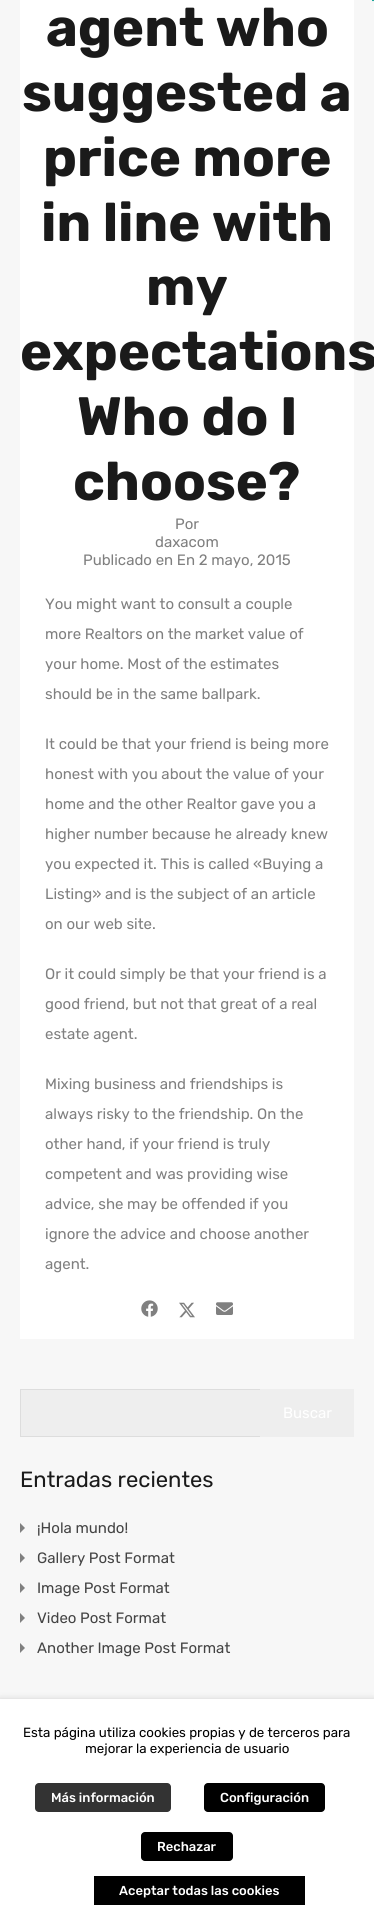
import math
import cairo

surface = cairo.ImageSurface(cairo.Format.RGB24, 374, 1920)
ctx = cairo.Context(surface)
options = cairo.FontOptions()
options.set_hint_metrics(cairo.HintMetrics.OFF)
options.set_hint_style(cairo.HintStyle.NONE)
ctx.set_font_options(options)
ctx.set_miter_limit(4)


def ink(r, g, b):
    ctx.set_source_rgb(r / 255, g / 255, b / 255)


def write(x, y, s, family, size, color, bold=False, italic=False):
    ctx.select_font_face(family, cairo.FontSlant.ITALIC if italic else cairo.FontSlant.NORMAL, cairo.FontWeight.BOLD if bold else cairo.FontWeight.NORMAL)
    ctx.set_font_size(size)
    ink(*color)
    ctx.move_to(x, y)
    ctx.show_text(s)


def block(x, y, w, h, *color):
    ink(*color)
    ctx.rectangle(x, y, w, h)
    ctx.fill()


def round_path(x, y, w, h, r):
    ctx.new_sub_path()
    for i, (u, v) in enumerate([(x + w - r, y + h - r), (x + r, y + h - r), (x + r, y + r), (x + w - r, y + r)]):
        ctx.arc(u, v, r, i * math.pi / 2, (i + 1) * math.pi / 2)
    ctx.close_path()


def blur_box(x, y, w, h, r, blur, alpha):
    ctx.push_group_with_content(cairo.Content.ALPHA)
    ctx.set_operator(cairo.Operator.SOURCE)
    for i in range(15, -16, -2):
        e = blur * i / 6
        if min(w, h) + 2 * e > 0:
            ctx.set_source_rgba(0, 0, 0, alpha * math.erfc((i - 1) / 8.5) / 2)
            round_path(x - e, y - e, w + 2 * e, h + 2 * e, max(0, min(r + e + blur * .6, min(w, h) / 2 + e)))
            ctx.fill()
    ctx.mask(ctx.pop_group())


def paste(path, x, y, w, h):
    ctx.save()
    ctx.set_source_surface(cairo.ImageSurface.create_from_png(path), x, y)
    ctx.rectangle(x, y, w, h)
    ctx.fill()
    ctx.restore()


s1 = dict(family="Rubik", size=54, color=(26, 26, 26), bold=True)
s2 = dict(family="Rubik", size=15, color=(128, 128, 128))
s3 = dict(family="Rubik", size=15, color=(255, 255, 255))
s4 = dict(family="Rubik", size=22, color=(26, 26, 26))
s5 = dict(family="Rubik", size=15, color=(68, 68, 68))
s6 = dict(family="Rubik", size=13.3, color=(0, 0, 0))
s7 = dict(family="Rubik Medium", size=13, color=(255, 255, 255))

ink(247, 247, 247)
ctx.paint()
ctx.new_path()
ctx.move_to(372, 0.5)
ctx.line_to(374, 0.5)
ink(30, 166, 154)
ctx.set_line_width(1.1)
ctx.stroke()
block(20, 0, 334, 1339, 255, 255, 255)
write(46, 46, "agent who", **s1)
write(22, 111, "suggested a", **s1)
write(43, 176, "price more", **s1)
write(41, 241, "in line with", **s1)
write(146, 305, "my", **s1)
write(20, 370, "expectations", **s1)
write(77, 435, "Who do I", **s1)
write(73, 500, "choose?", **s1)
write(175, 529, "Por", **s2)
write(155, 547, "daxacom", **s2)
write(83, 565, "Publicado en En 2 mayo, 2015", **s2)
write(45, 609, "You might want to consult a couple", **s2)
write(45, 639, "more Realtors on the market value of", **s2)
write(45, 669, "your home. Most of the estimates", **s2)
write(45, 699, "should be in the same ballpark.", **s2)
write(45, 749, "It could be that your friend is being more", **s2)
write(45, 779, "honest with you about the value of your", **s2)
write(45, 809, "home and the other Realtor gave you a", **s2)
write(45, 839, "higher number because he already knew", **s2)
write(45, 869, "you expected it. This is called «Buying a", **s2)
write(45, 899, "Listing» and is the subject of an article", **s2)
write(45, 929, "on our web site.", **s2)
write(45, 979, "Or it could simply be that your friend is a", **s2)
write(45, 1009, "good friend, but not that great of a real", **s2)
write(45, 1039, "estate agent.", **s2)
write(45, 1089, "Mixing business and friendships is", **s2)
write(45, 1119, "always risky to the friendship. On the", **s2)
write(45, 1149, "other hand, if your friend is truly", **s2)
write(45, 1179, "competent and was providing wise", **s2)
write(45, 1209, "advice, she may be offended if you", **s2)
write(45, 1239, "ignore the advice and choose another", **s2)
write(45, 1269, "agent.", **s2)
paste("pic1.png", 141, 1300, 17, 17)
paste("pic2.png", 179, 1302, 16, 16)
paste("pic3.png", 216, 1302, 17, 13)
block(21, 1390, 239, 46, 238, 238, 238)
block(20, 1389, 240, 1, 221, 221, 221)
block(20, 1436, 240, 1, 221, 221, 221)
block(20, 1389, 1, 48, 221, 221, 221)
block(260, 1389, 94, 48, 238, 238, 238)
write(283, 1418, "Buscar", **s3)
write(20, 1487, "Entradas recientes", **s4)
ink(128, 128, 128)
ctx.new_path()
ctx.move_to(20, 1533)
ctx.line_to(20, 1523)
ctx.line_to(25, 1528)
ctx.close_path()
ctx.fill()
write(37, 1533, "¡Hola mundo!", **s5)
ink(128, 128, 128)
ctx.new_path()
ctx.move_to(20, 1563)
ctx.line_to(20, 1553)
ctx.line_to(25, 1558)
ctx.close_path()
ctx.fill()
write(37, 1563, "Gallery Post Format", **s5)
ink(128, 128, 128)
ctx.new_path()
ctx.move_to(20, 1593)
ctx.line_to(20, 1583)
ctx.line_to(25, 1588)
ctx.close_path()
ctx.fill()
write(37, 1593, "Image Post Format", **s5)
ink(128, 128, 128)
ctx.new_path()
ctx.move_to(20, 1623)
ctx.line_to(20, 1613)
ctx.line_to(25, 1618)
ctx.close_path()
ctx.fill()
write(37, 1623, "Video Post Format", **s5)
ink(128, 128, 128)
ctx.new_path()
ctx.move_to(20, 1653)
ctx.line_to(20, 1643)
ctx.line_to(25, 1648)
ctx.close_path()
ctx.fill()
write(37, 1653, "Another Image Post Format", **s5)
ink(0, 0, 0)
blur_box(0, 1704, 374, 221, 0, 5, 0.5)
block(0, 1699, 374, 221, 255, 255, 255)
write(23, 1737, "Esta página utiliza cookies propias y de terceros para", **s6)
write(85, 1753, "mejorar la experiencia de usuario", **s6)
ink(51, 51, 51)
round_path(35, 1783, 136, 29, 4)
ctx.fill()
write(51, 1802, "Más información", **s7)
ink(0, 0, 0)
round_path(204, 1783, 121, 29, 4)
ctx.fill()
write(220, 1802, "Configuración", **s7)
ink(0, 0, 0)
round_path(141, 1832, 92, 29, 4)
ctx.fill()
write(157, 1851, "Rechazar", **s7)
block(94, 1876, 211, 29, 0, 0, 0)
write(119, 1895, "Aceptar todas las cookies", **s7)
surface.write_to_png("screenshot.png")
